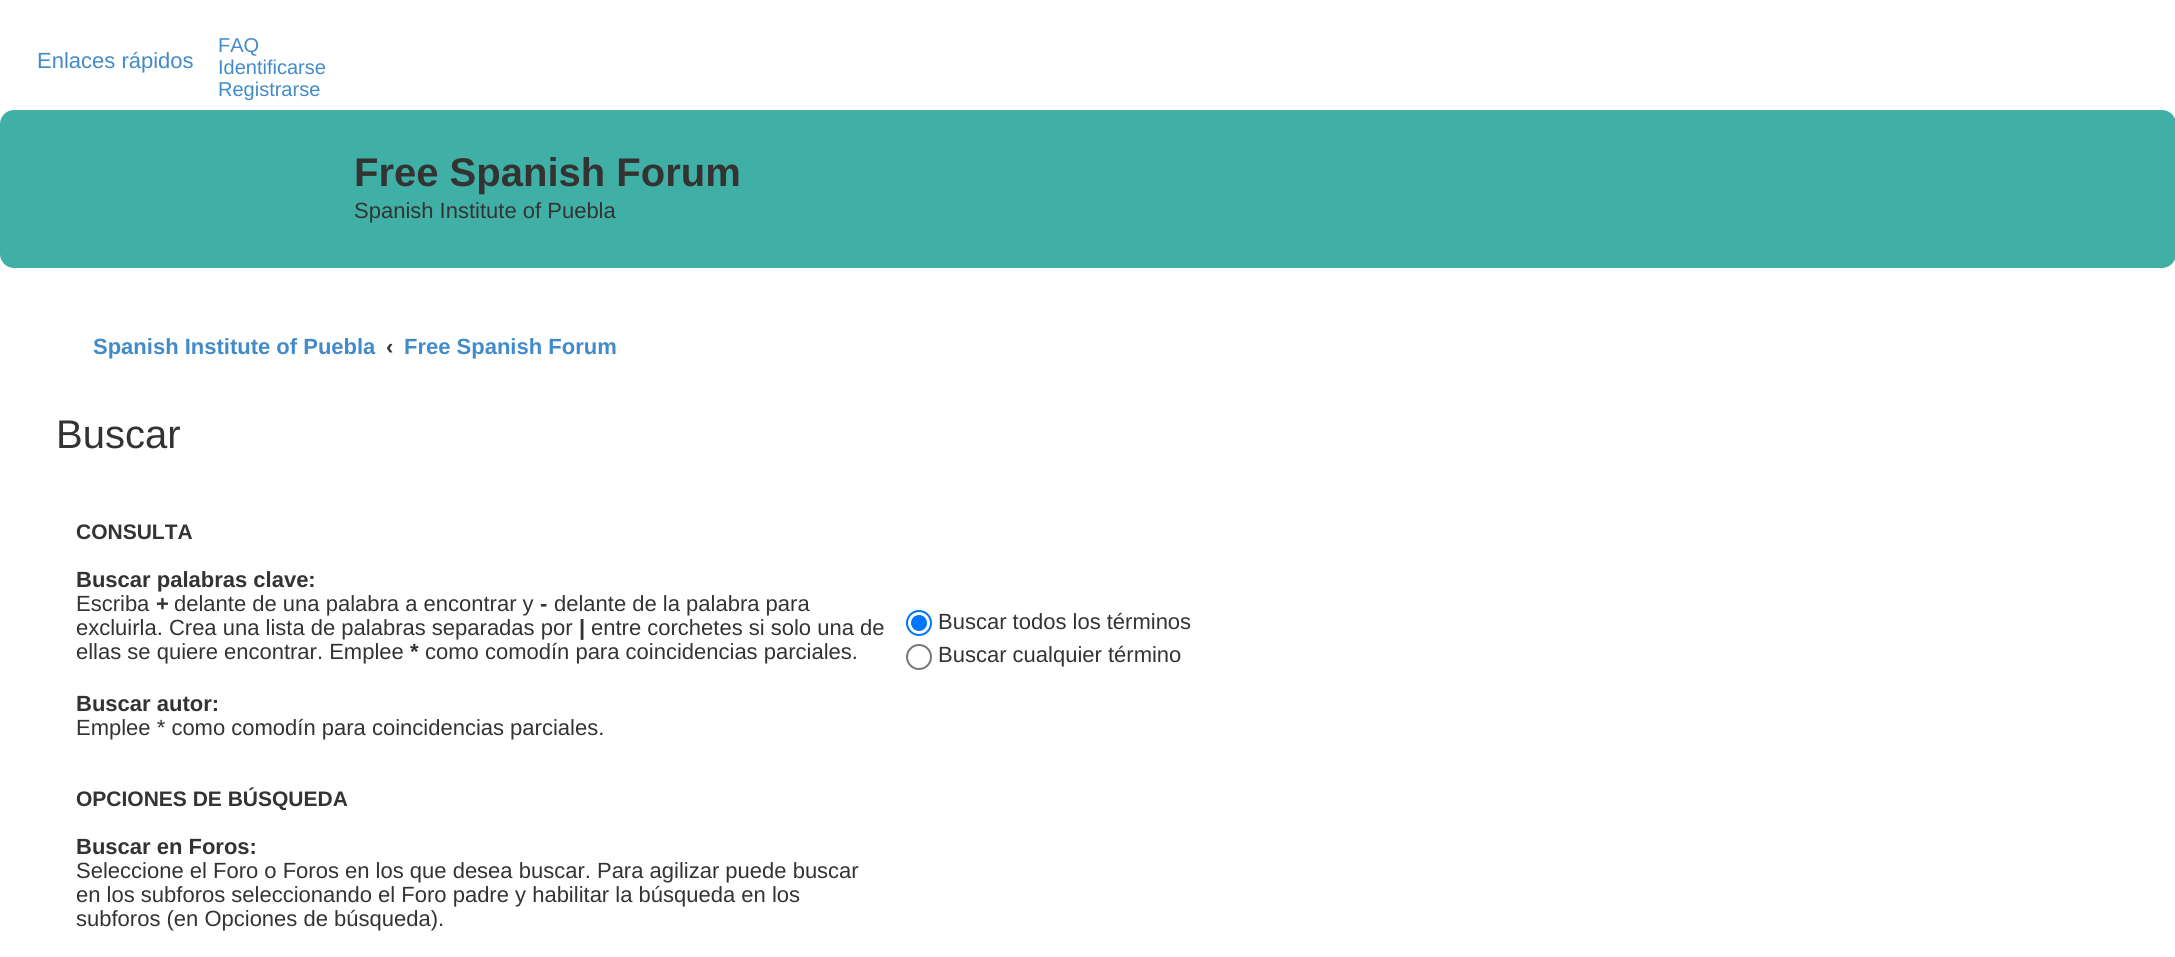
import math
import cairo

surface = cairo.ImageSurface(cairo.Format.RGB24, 2175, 957)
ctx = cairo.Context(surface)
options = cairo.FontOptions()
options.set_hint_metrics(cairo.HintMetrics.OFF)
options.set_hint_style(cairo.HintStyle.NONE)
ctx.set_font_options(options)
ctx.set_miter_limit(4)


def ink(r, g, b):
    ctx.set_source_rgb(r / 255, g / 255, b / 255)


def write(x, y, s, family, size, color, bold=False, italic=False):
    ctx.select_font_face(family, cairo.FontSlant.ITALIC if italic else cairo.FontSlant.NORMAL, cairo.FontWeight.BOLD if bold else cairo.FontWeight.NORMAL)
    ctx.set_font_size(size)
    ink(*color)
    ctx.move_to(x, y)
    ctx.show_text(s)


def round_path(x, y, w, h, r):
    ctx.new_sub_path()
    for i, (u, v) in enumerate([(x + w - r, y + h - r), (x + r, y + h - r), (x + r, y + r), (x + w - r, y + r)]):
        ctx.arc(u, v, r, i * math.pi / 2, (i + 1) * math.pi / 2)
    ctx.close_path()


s1 = dict(family="Liberation Sans", size=22, color=(66, 139, 202))
s2 = dict(family="Liberation Sans", size=20, color=(66, 139, 202))
s3 = dict(family="Liberation Sans", size=40, color=(51, 51, 51), bold=True)
s4 = dict(family="Liberation Sans", size=22, color=(51, 51, 51))
s5 = dict(family="Liberation Sans", size=22, color=(66, 139, 202), bold=True)
s6 = dict(family="Liberation Sans", size=22, color=(51, 51, 51), bold=True)
s7 = dict(family="Liberation Sans", size=40, color=(51, 51, 51))
s8 = dict(family="Liberation Sans", size=21, color=(51, 51, 51), bold=True)

ink(255, 255, 255)
ctx.paint()
write(37, 68, "Enlaces rápidos", **s1)
write(218, 52, "FAQ", **s2)
write(218, 74, "Identificarse", **s2)
write(218, 96, "Registrarse", **s2)
ink(64, 176, 166)
round_path(0, 110, 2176, 158, 14)
ctx.fill()
write(354, 186, "Free Spanish Forum", **s3)
write(354, 218, "Spanish Institute of Puebla", **s4)
write(93, 354, "Spanish Institute of Puebla", **s5)
write(386, 354, "‹", **s6)
write(404, 354, "Free Spanish Forum", **s5)
write(56, 448, "Buscar", **s7)
write(76, 539, "CONSULTA", **s8)
write(76, 587, "Buscar palabras clave:", **s6)
write(76, 611, "Escriba", **s4)
write(156, 611, "+", **s6)
write(174, 611, "delante de una palabra a encontrar y", **s4)
write(540, 611, "-", **s6)
write(554, 611, "delante de la palabra para", **s4)
write(76, 635, "excluirla. Crea una lista de palabras separadas por", **s4)
write(579, 635, "|", **s6)
write(591, 635, "entre corchetes si solo una de", **s4)
write(76, 659, "ellas se quiere encontrar. Emplee", **s4)
write(410, 659, "*", **s6)
write(425, 659, "como comodín para coincidencias parciales.", **s4)
ctx.new_path()
ctx.arc(919, 623, 12, 0, 2 * math.pi)
ink(0, 117, 255)
ctx.stroke()
ctx.arc(919, 623, 8, 0, 2 * math.pi)
ctx.fill()
write(938, 629, "Buscar todos los términos", **s4)
ctx.new_path()
ctx.arc(919, 657, 12, 0, 2 * math.pi)
ink(118, 118, 118)
ctx.stroke()
write(938, 662, "Buscar cualquier término", **s4)
write(76, 711, "Buscar autor:", **s6)
write(76, 735, "Emplee * como comodín para coincidencias parciales.", **s4)
write(76, 806, "OPCIONES DE BÚSQUEDA", **s8)
write(76, 854, "Buscar en Foros:", **s6)
write(76, 878, "Seleccione el Foro o Foros en los que desea buscar. Para agilizar puede buscar", **s4)
write(76, 902, "en los subforos seleccionando el Foro padre y habilitar la búsqueda en los", **s4)
write(76, 926, "subforos (en Opciones de búsqueda).", **s4)
surface.write_to_png("screenshot.png")
